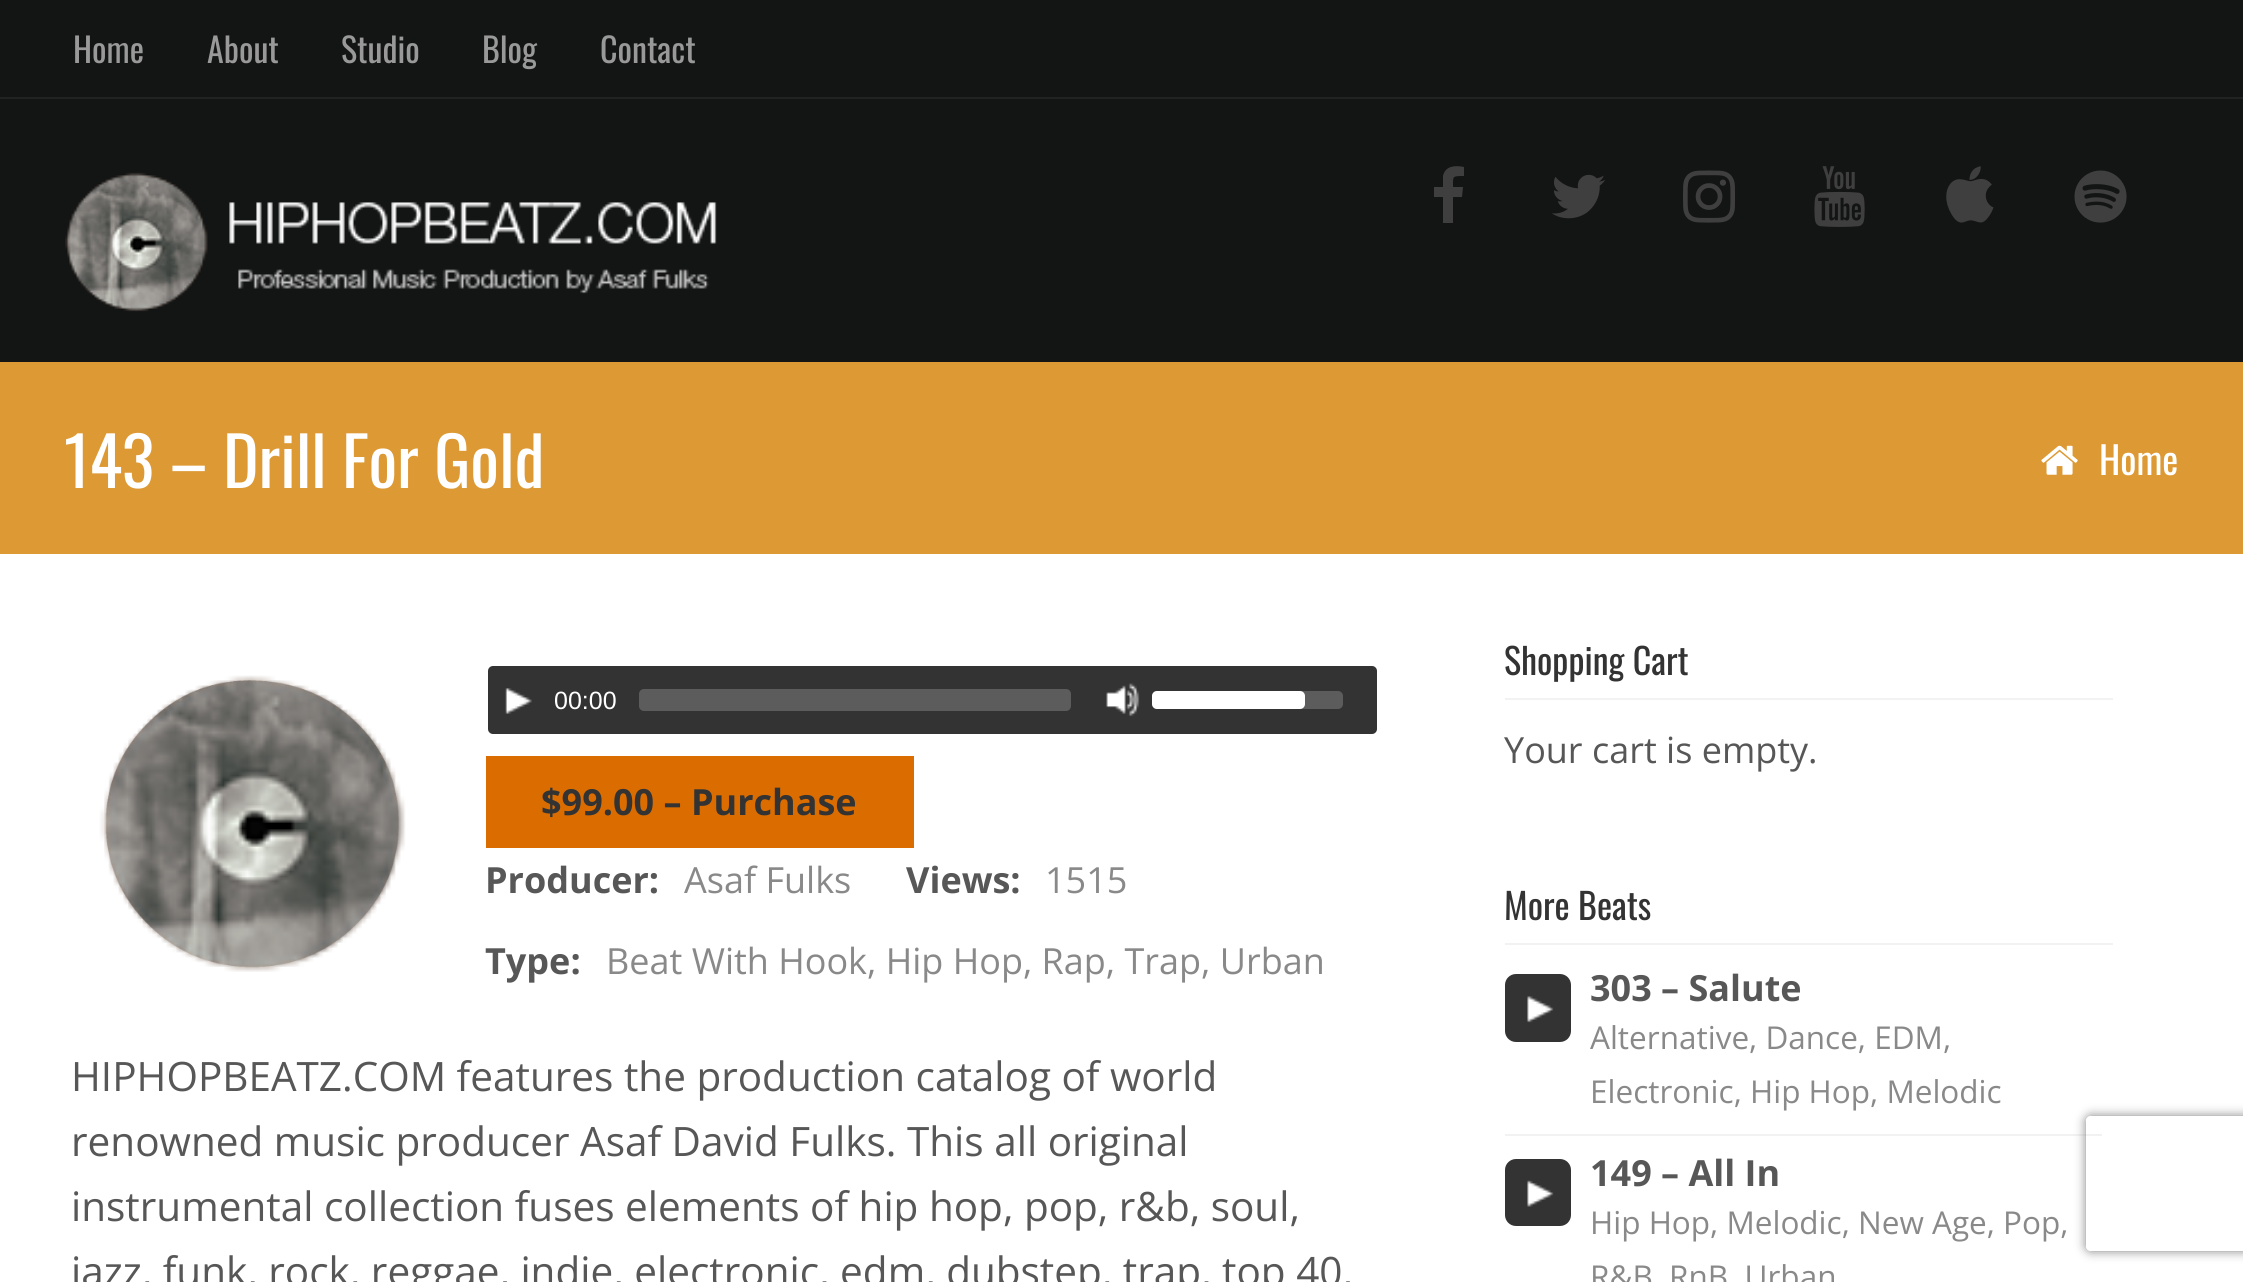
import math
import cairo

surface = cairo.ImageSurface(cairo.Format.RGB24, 2243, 1282)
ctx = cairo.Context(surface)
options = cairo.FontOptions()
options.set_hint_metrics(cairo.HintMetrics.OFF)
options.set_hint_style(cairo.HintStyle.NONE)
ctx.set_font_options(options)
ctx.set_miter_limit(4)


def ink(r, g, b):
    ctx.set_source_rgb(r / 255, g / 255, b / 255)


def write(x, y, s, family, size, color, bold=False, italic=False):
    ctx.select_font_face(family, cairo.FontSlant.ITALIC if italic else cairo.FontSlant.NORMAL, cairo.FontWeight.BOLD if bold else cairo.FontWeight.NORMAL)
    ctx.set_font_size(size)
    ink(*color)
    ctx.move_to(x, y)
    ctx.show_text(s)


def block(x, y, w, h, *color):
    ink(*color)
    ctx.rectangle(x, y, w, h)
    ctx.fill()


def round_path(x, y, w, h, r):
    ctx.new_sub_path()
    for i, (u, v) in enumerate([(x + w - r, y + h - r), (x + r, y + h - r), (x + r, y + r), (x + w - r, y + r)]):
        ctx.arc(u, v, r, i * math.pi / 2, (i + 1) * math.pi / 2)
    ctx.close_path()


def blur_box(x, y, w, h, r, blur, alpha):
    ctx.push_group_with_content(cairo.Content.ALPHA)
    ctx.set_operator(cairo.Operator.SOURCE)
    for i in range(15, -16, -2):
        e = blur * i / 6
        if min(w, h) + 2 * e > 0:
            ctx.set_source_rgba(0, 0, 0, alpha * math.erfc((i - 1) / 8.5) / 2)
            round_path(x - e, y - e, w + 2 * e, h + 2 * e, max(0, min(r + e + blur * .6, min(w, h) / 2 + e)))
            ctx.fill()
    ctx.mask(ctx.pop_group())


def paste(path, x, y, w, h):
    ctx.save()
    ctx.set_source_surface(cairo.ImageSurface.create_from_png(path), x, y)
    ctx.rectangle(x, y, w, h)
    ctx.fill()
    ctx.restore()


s1 = dict(family="Oswald", size=34, color=(153, 153, 153))
s2 = dict(family="Oswald", size=67.5, color=(255, 255, 255))
s3 = dict(family="Oswald", size=38, color=(255, 255, 255))
s4 = dict(family="Liberation Sans", size=25, color=(255, 255, 255))
s5 = dict(family="Open Sans", size=36, color=(51, 51, 51), bold=True)
s6 = dict(family="Open Sans", size=36, color=(87, 87, 87), bold=True)
s7 = dict(family="Open Sans", size=36, color=(137, 137, 137))
s8 = dict(family="Open Sans", size=40.5, color=(87, 87, 87))
s9 = dict(family="Oswald", size=36, color=(51, 51, 51))
s10 = dict(family="Open Sans", size=36, color=(87, 87, 87))
s11 = dict(family="Open Sans", size=31.5, color=(137, 137, 137))

ink(255, 255, 255)
ctx.paint()
block(0, 0, 2243, 97, 19, 20, 20)
block(0, 97, 2243, 2, 33, 34, 34)
write(73, 63, "Home", **s1)
write(207, 63, "About", **s1)
write(341, 63, "Studio", **s1)
write(482, 63, "Blog", **s1)
write(600, 63, "Contact", **s1)
block(0, 99, 2243, 263, 19, 20, 20)
paste("pic1.png", 65, 172, 652, 140)
ink(63, 63, 63)
ctx.new_path()
ctx.move_to(1464, 167)
ctx.line_to(1464, 176)
ctx.curve_to(1452, 176, 1453, 176, 1453, 187)
ctx.line_to(1463, 187)
ctx.line_to(1462, 197)
ctx.line_to(1453, 197)
ctx.line_to(1453, 223)
ctx.line_to(1443, 223)
ctx.line_to(1443, 197)
ctx.line_to(1434, 197)
ctx.line_to(1434, 187)
ctx.line_to(1443, 187)
ctx.line_to(1443, 176)
ctx.curve_to(1445, 166, 1455, 165, 1464, 167)
ctx.close_path()
ctx.fill()
paste("pic2.png", 1552, 174, 53, 45)
paste("pic3.png", 1683, 170, 52, 53)
paste("pic4.png", 1814, 166, 51, 61)
paste("pic5.png", 1946, 166, 48, 57)
paste("pic6.png", 2074, 170, 53, 53)
block(0, 362, 2243, 192, 221, 153, 51)
write(64, 488, "143 – Drill For Gold", **s2)
paste("pic7.png", 2041, 445, 37, 30)
write(2099, 475, "Home", **s3)
paste("pic8.png", 105, 680, 295, 288)
paste("pic9.png", 99, 675, 307, 297)
ink(51, 51, 51)
round_path(488, 666, 889, 68, 5)
ctx.fill()
paste("pic10.png", 505, 688, 27, 26)
write(554, 709, "00:00", **s4)
ink(92, 92, 92)
round_path(639, 689, 432, 22, 5)
ctx.fill()
paste("pic11.png", 1106, 683, 34, 34)
round_path(1152, 691, 191, 18, 5)
ctx.fill()
ink(255, 255, 255)
round_path(1152, 691, 153, 18, 5)
ctx.fill()
block(486, 756, 428, 92, 219, 109, 0)
write(541, 815, "$99.00 – Purchase", **s5)
write(485, 893, "Producer:", **s6)
write(684, 893, "Asaf Fulks", **s7)
write(906, 893, "Views:", **s6)
write(1045, 893, "1515", **s7)
write(485, 974, "Type:", **s6)
write(606, 974, "Beat With Hook, Hip Hop, Rap, Trap, Urban", **s7)
write(71, 1091, "HIPHOPBEATZ.COM features the production catalog of world", **s8)
write(71, 1156, "renowned music producer Asaf David Fulks. This all original", **s8)
write(71, 1221, "instrumental collection fuses elements of hip hop, pop, r&b, soul,", **s8)
write(71, 1286, "jazz, funk, rock, reggae, indie, electronic, edm, dubstep, trap, top 40,", **s8)
block(1505, 698, 608, 2, 242, 242, 242)
write(1504, 675, "Shopping Cart", **s9)
write(1504, 763, "Your cart is empty.", **s10)
block(1505, 943, 608, 2, 242, 242, 242)
write(1504, 920, "More Beats", **s9)
block(1505, 1134, 597, 2, 242, 242, 242)
ink(51, 51, 51)
round_path(1505, 974, 66, 68, 11)
ctx.fill()
paste("pic12.png", 1527, 996, 27, 27)
write(1590, 1001, "303 – Salute", **s6)
write(1590, 1049, "Alternative, Dance, EDM,", **s11)
write(1590, 1103, "Electronic, Hip Hop, Melodic", **s11)
ink(51, 51, 51)
round_path(1505, 1159, 66, 67, 11)
ctx.fill()
paste("pic13.png", 1527, 1180, 27, 27)
write(1590, 1186, "149 – All In", **s6)
write(1590, 1234, "Hip Hop, Melodic, New Age, Pop,", **s11)
write(1590, 1288, "R&B, RnB, Urban", **s11)
ctx.save()
ctx.set_fill_rule(cairo.FillRule.EVEN_ODD)
ctx.new_path()
ctx.move_to(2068, 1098)
ctx.line_to(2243, 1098)
ctx.line_to(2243, 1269)
ctx.line_to(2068, 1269)
ctx.close_path()
ctx.move_to(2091, 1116)
ctx.line_to(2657, 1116)
ctx.curve_to(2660, 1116, 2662, 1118, 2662, 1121)
ctx.line_to(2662, 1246)
ctx.curve_to(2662, 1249, 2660, 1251, 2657, 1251)
ctx.line_to(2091, 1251)
ctx.curve_to(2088, 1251, 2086, 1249, 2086, 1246)
ctx.line_to(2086, 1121)
ctx.curve_to(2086, 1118, 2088, 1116, 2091, 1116)
ctx.close_path()
ctx.clip()
ink(128, 128, 128)
blur_box(2086, 1116, 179, 135, 5, 5.5, 1)
ctx.restore()
surface.write_to_png("screenshot.png")
